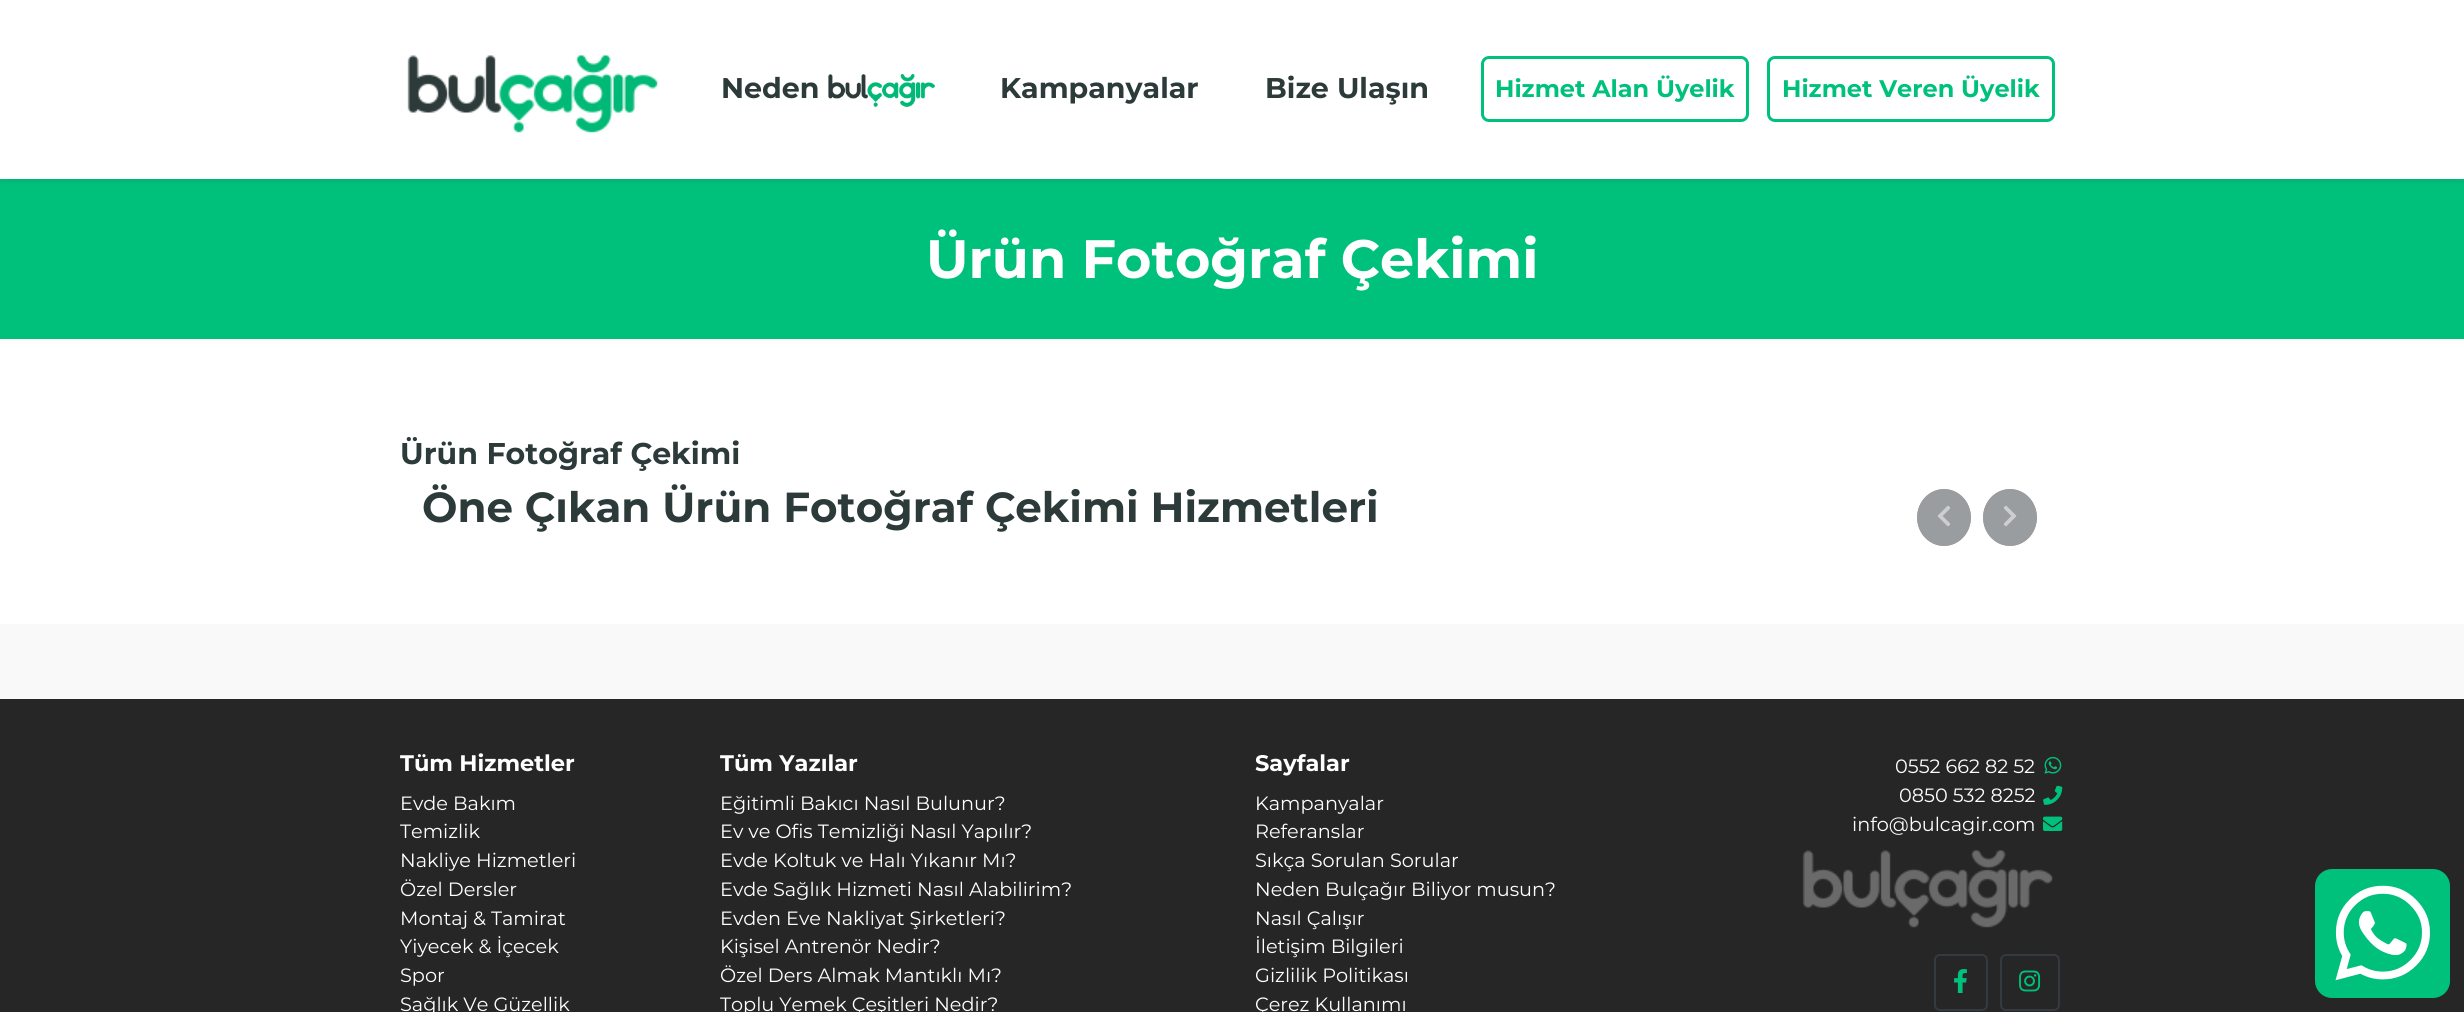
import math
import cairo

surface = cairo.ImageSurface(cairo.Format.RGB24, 2464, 1012)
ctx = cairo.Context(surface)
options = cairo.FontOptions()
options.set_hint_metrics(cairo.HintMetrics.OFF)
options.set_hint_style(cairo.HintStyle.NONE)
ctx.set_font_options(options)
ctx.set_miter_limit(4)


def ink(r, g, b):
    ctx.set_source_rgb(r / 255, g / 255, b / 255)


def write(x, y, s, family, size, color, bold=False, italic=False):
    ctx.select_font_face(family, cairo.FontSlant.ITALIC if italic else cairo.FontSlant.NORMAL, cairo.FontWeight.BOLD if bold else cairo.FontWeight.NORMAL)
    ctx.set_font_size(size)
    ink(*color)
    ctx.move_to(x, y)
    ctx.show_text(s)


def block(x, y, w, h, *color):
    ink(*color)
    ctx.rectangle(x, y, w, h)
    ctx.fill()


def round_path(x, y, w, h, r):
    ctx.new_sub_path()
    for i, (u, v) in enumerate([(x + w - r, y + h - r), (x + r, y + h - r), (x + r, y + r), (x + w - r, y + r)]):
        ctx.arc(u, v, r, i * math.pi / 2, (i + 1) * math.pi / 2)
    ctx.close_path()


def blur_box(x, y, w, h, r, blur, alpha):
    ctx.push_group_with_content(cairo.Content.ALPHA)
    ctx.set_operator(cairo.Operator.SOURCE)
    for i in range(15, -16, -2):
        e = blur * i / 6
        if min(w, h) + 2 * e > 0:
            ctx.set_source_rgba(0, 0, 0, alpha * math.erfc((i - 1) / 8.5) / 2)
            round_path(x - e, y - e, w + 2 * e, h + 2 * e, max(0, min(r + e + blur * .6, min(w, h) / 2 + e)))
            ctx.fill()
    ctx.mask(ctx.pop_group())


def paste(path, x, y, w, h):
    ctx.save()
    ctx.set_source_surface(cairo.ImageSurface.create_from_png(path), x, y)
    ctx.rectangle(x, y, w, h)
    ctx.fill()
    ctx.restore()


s1 = dict(family="Montserrat", size=28.5, color=(45, 58, 58), bold=True)
s2 = dict(family="Montserrat", size=24, color=(0, 193, 123), bold=True)
s3 = dict(family="Montserrat", size=54, color=(255, 255, 255), bold=True)
s4 = dict(family="Montserrat", size=30, color=(45, 58, 58), bold=True)
s5 = dict(family="Montserrat", size=42, color=(45, 58, 58), bold=True)
s6 = dict(family="Montserrat", size=22.5, color=(255, 255, 255), bold=True)
s7 = dict(family="Montserrat", size=19.25, color=(255, 255, 255))

ink(249, 249, 249)
ctx.paint()
block(0, 0, 2464, 624, 255, 255, 255)
block(0, 179, 2464, 160, 0, 193, 123)
ctx.save()
ctx.set_fill_rule(cairo.FillRule.EVEN_ODD)
ctx.new_path()
ctx.move_to(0, 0)
ctx.line_to(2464, 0)
ctx.line_to(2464, 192)
ctx.line_to(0, 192)
ctx.close_path()
ctx.move_to(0, 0)
ctx.line_to(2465, 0)
ctx.line_to(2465, 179)
ctx.line_to(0, 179)
ctx.close_path()
ctx.clip()
ink(0, 0, 0)
blur_box(0, 3, 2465, 179, 0, 3, 0.07)
ctx.restore()
paste("pic1.png", 407, 54, 251, 79)
write(721, 98, "Neden", **s1)
paste("pic2.png", 828, 74, 107, 33)
write(1000, 98, "Kampanyalar", **s1)
write(1265, 98, "Bize Ulaşın", **s1)
round_path(1482.5, 57.5, 265, 63, 6.5)
ink(0, 193, 123)
ctx.set_line_width(3)
ctx.stroke()
write(1495, 97, "Hizmet Alan Üyelik", **s2)
round_path(1768.5, 57.5, 285, 63, 6.5)
ctx.stroke()
write(1782, 97, "Hizmet Veren Üyelik", **s2)
write(926, 278, "Ürün Fotoğraf Çekimi", **s3)
write(400, 464, "Ürün Fotoğraf Çekimi", **s4)
write(422, 522, "Öne Çıkan Ürün Fotoğraf Çekimi Hizmetleri", **s5)
ink(154, 157, 160)
ctx.new_path()
ctx.move_to(1944, 489)
ctx.curve_to(1959, 489, 1971, 502, 1971, 517.5)
ctx.curve_to(1971, 533, 1959, 546, 1944, 546)
ctx.curve_to(1929, 546, 1917, 533, 1917, 517.5)
ctx.curve_to(1917, 502, 1929, 489, 1944, 489)
ctx.close_path()
ctx.fill()
ctx.new_path()
ctx.move_to(1944, 490)
ctx.curve_to(1958.5, 490, 1970, 502, 1970, 517.5)
ctx.curve_to(1970, 533, 1958.5, 545, 1944, 545)
ctx.curve_to(1929.5, 545, 1918, 533, 1918, 517.5)
ctx.curve_to(1918, 502, 1929.5, 490, 1944, 490)
ctx.close_path()
ctx.set_line_width(1.5)
ctx.stroke()
paste("pic3.png", 1937, 505, 14, 22)
ctx.new_path()
ctx.move_to(2010, 489)
ctx.curve_to(2025, 489, 2037, 502, 2037, 517.5)
ctx.curve_to(2037, 533, 2025, 546, 2010, 546)
ctx.curve_to(1995, 546, 1983, 533, 1983, 517.5)
ctx.curve_to(1983, 502, 1995, 489, 2010, 489)
ctx.close_path()
ctx.fill()
ctx.new_path()
ctx.move_to(2010, 490)
ctx.curve_to(2024.5, 490, 2036, 502, 2036, 517.5)
ctx.curve_to(2036, 533, 2024.5, 545, 2010, 545)
ctx.curve_to(1995.5, 545, 1984, 533, 1984, 517.5)
ctx.curve_to(1984, 502, 1995.5, 490, 2010, 490)
ctx.close_path()
ctx.stroke()
paste("pic4.png", 2003, 505, 14, 22)
block(0, 699, 2464, 313, 38, 38, 38)
write(400, 771, "Tüm Hizmetler", **s6)
write(400, 810, "Evde Bakım", **s7)
write(400, 838, "Temizlik", **s7)
write(400, 867, "Nakliye Hizmetleri", **s7)
write(400, 896, "Özel Dersler", **s7)
write(400, 925, "Montaj & Tamirat", **s7)
write(400, 953, "Yiyecek & İçecek", **s7)
write(400, 982, "Spor", **s7)
write(400, 1011, "Sağlık Ve Güzellik", **s7)
write(720, 771, "Tüm Yazılar", **s6)
write(720, 810, "Eğitimli Bakıcı Nasıl Bulunur?", **s7)
write(720, 838, "Ev ve Ofis Temizliği Nasıl Yapılır?", **s7)
write(720, 867, "Evde Koltuk ve Halı Yıkanır Mı?", **s7)
write(720, 896, "Evde Sağlık Hizmeti Nasıl Alabilirim?", **s7)
write(720, 925, "Evden Eve Nakliyat Şirketleri?", **s7)
write(720, 953, "Kişisel Antrenör Nedir?", **s7)
write(720, 982, "Özel Ders Almak Mantıklı Mı?", **s7)
write(720, 1011, "Toplu Yemek Çeşitleri Nedir?", **s7)
write(1255, 771, "Sayfalar", **s6)
write(1255, 810, "Kampanyalar", **s7)
write(1255, 838, "Referanslar", **s7)
write(1255, 867, "Sıkça Sorulan Sorular", **s7)
write(1255, 896, "Neden Bulçağır Biliyor musun?", **s7)
write(1255, 925, "Nasıl Çalışır", **s7)
write(1255, 953, "İletişim Bilgileri", **s7)
write(1255, 982, "Gizlilik Politikası", **s7)
write(1255, 1011, "Çerez Kullanımı", **s7)
write(1895, 773, "0552 662 82 52", **s7)
paste("pic5.png", 2044, 756, 18, 18)
write(1899, 802, "0850 532 8252", **s7)
paste("pic6.png", 2043, 785, 20, 20)
write(1852, 831, "info@bulcagir.com", **s7)
paste("pic7.png", 2043, 816, 20, 15)
paste("pic8.png", 1802, 850, 251, 78)
round_path(1935, 955, 52, 55, 5)
ink(52, 58, 64)
ctx.set_line_width(2)
ctx.stroke()
paste("pic9.png", 1954, 969, 13, 24)
round_path(2001, 955, 58, 55, 5)
ctx.stroke()
paste("pic10.png", 2019, 970, 22, 22)
ink(0, 193, 123)
round_path(2317.5, 871.5, 130, 124, 14.5)
ctx.fill_preserve()
ctx.set_line_width(5)
ctx.stroke()
paste("pic11.png", 2335, 885, 95, 96)
surface.write_to_png("screenshot.png")
